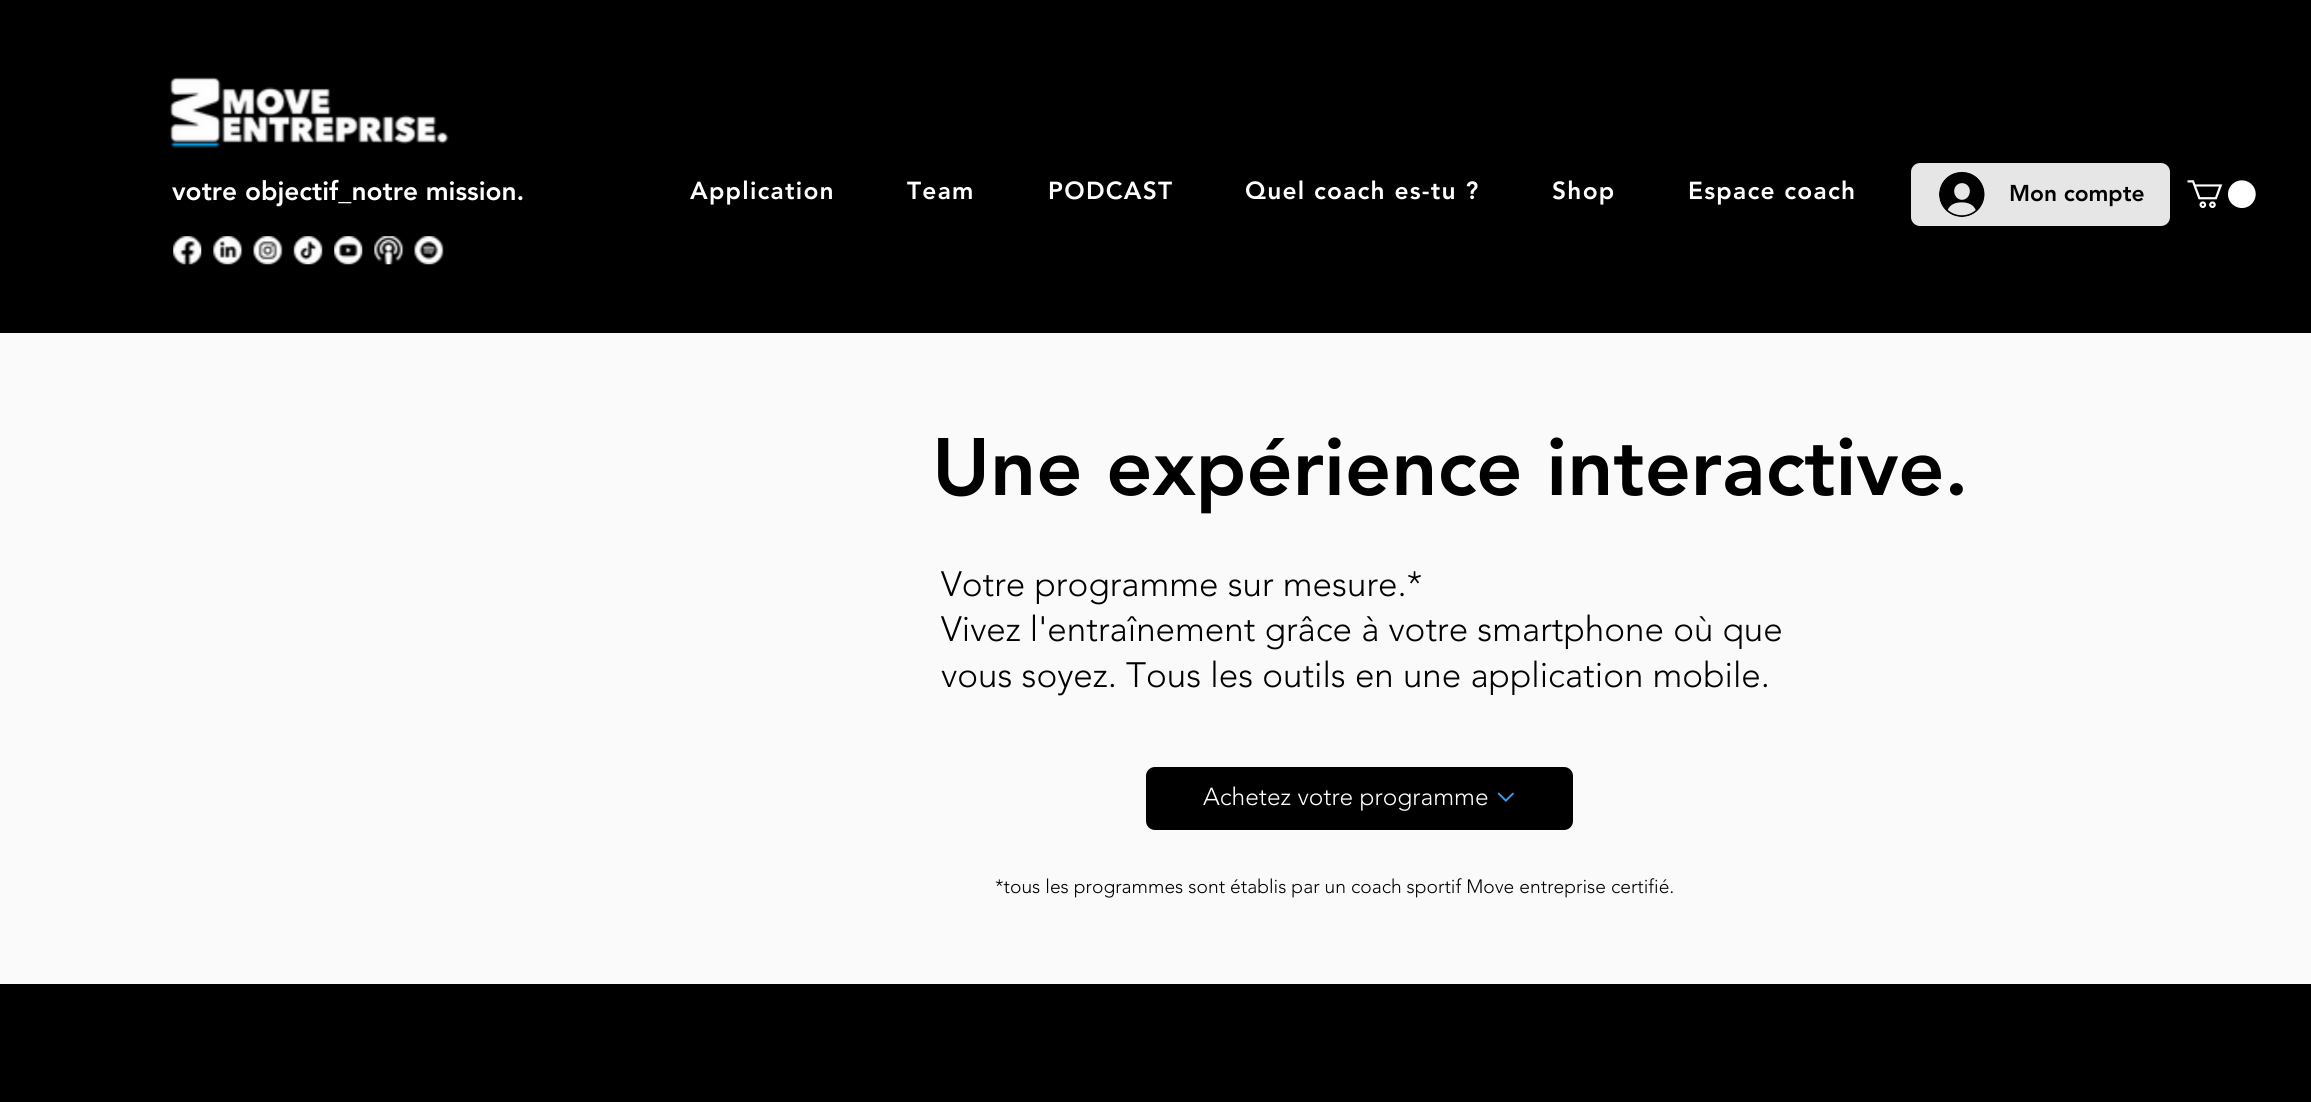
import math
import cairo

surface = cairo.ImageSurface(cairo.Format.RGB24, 2311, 1102)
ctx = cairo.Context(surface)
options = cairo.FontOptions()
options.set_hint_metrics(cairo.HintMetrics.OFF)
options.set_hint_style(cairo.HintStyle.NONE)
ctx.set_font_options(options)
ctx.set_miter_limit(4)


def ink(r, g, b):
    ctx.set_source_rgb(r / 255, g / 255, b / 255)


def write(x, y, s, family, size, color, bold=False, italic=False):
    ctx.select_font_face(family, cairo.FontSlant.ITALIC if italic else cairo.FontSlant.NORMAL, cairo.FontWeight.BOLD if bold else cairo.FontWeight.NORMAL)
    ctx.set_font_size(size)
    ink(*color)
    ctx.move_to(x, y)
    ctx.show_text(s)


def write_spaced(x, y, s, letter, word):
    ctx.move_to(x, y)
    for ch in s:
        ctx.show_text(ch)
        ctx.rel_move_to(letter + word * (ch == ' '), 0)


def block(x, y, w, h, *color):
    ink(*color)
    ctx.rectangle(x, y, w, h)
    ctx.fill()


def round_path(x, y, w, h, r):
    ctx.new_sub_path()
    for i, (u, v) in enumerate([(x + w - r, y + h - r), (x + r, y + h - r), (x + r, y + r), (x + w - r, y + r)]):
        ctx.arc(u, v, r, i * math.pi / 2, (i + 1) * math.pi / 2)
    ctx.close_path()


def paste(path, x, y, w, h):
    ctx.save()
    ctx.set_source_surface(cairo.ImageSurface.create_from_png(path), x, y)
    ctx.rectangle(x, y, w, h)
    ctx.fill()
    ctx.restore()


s1 = dict(family="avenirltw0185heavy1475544 Black", size=26.25, color=(255, 255, 255))
s2 = dict(family="avenirltw0185heavy1475544 Black", size=22.75, color=(0, 0, 0))
s3 = dict(family="avenirltw0185heavy1475544 Black", size=80.5, color=(0, 0, 0))
s4 = dict(family="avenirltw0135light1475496 Light", size=35, color=(0, 0, 0))
s5 = dict(family="avenirltw0135light1475496 Light", size=24.5, color=(255, 255, 255))
s6 = dict(family="avenirltw0135light1475496 Light", size=19.25, color=(0, 0, 0))

ink(0, 0, 0)
ctx.paint()
paste("pic1.png", 169, 77, 280, 71)
write(172, 200, "votre objectif_notre mission.", **s1)
ctx.set_font_size(24.5)
write_spaced(690, 199, "Application", 1.25, 0)
ink(0, 0, 0)
ctx.new_path()
ctx.move_to(679, 191)
ctx.line_to(694, 173)
ctx.line_to(696.5, 175.5)
ctx.line_to(683, 191)
ctx.line_to(696.5, 206)
ctx.line_to(694, 208)
ctx.close_path()
ctx.fill()
ink(255, 255, 255)
write_spaced(907, 199, "Team", 1.25, 0)
write_spaced(1048, 199, "PODCAST", 1.25, 0)
write_spaced(1245, 199, "Quel coach es-tu ?", 1.25, 0)
write_spaced(1552, 199, "Shop", 1.25, 0)
write_spaced(1688, 199, "Espace coach", 1.25, 0)
ink(230, 230, 230)
round_path(1911, 163, 259, 63, 9)
ctx.fill()
paste("pic2.png", 1939, 172, 46, 45)
write(2009, 201, "Mon compte", **s2)
paste("pic3.png", 2187, 180, 69, 29)
paste("pic4.png", 173, 236, 29, 29)
paste("pic5.png", 213, 236, 30, 29)
paste("pic6.png", 253, 236, 30, 29)
paste("pic7.png", 293, 236, 30, 29)
paste("pic8.png", 334, 236, 29, 29)
paste("pic9.png", 374, 236, 30, 29)
paste("pic10.png", 414, 236, 30, 29)
block(0, 333, 2311, 651, 250, 250, 250)
write(932, 495, "Une expérience interactive.", **s3)
write(941, 596, "Votre programme sur mesure.*", **s4)
write(941, 641, "Vivez l'entraînement grâce à votre smartphone où que", **s4)
write(941, 687, "vous soyez. Tous les outils en une application mobile.", **s4)
round_path(1146, 767, 427, 63, 9)
ctx.fill()
write(1203, 805, "Achetez votre programme", **s5)
paste("pic11.png", 1497, 792, 17, 10)
write(995, 893, "*tous les programmes sont établis par un coach sportif Move entreprise certifié.", **s6)
surface.write_to_png("screenshot.png")
